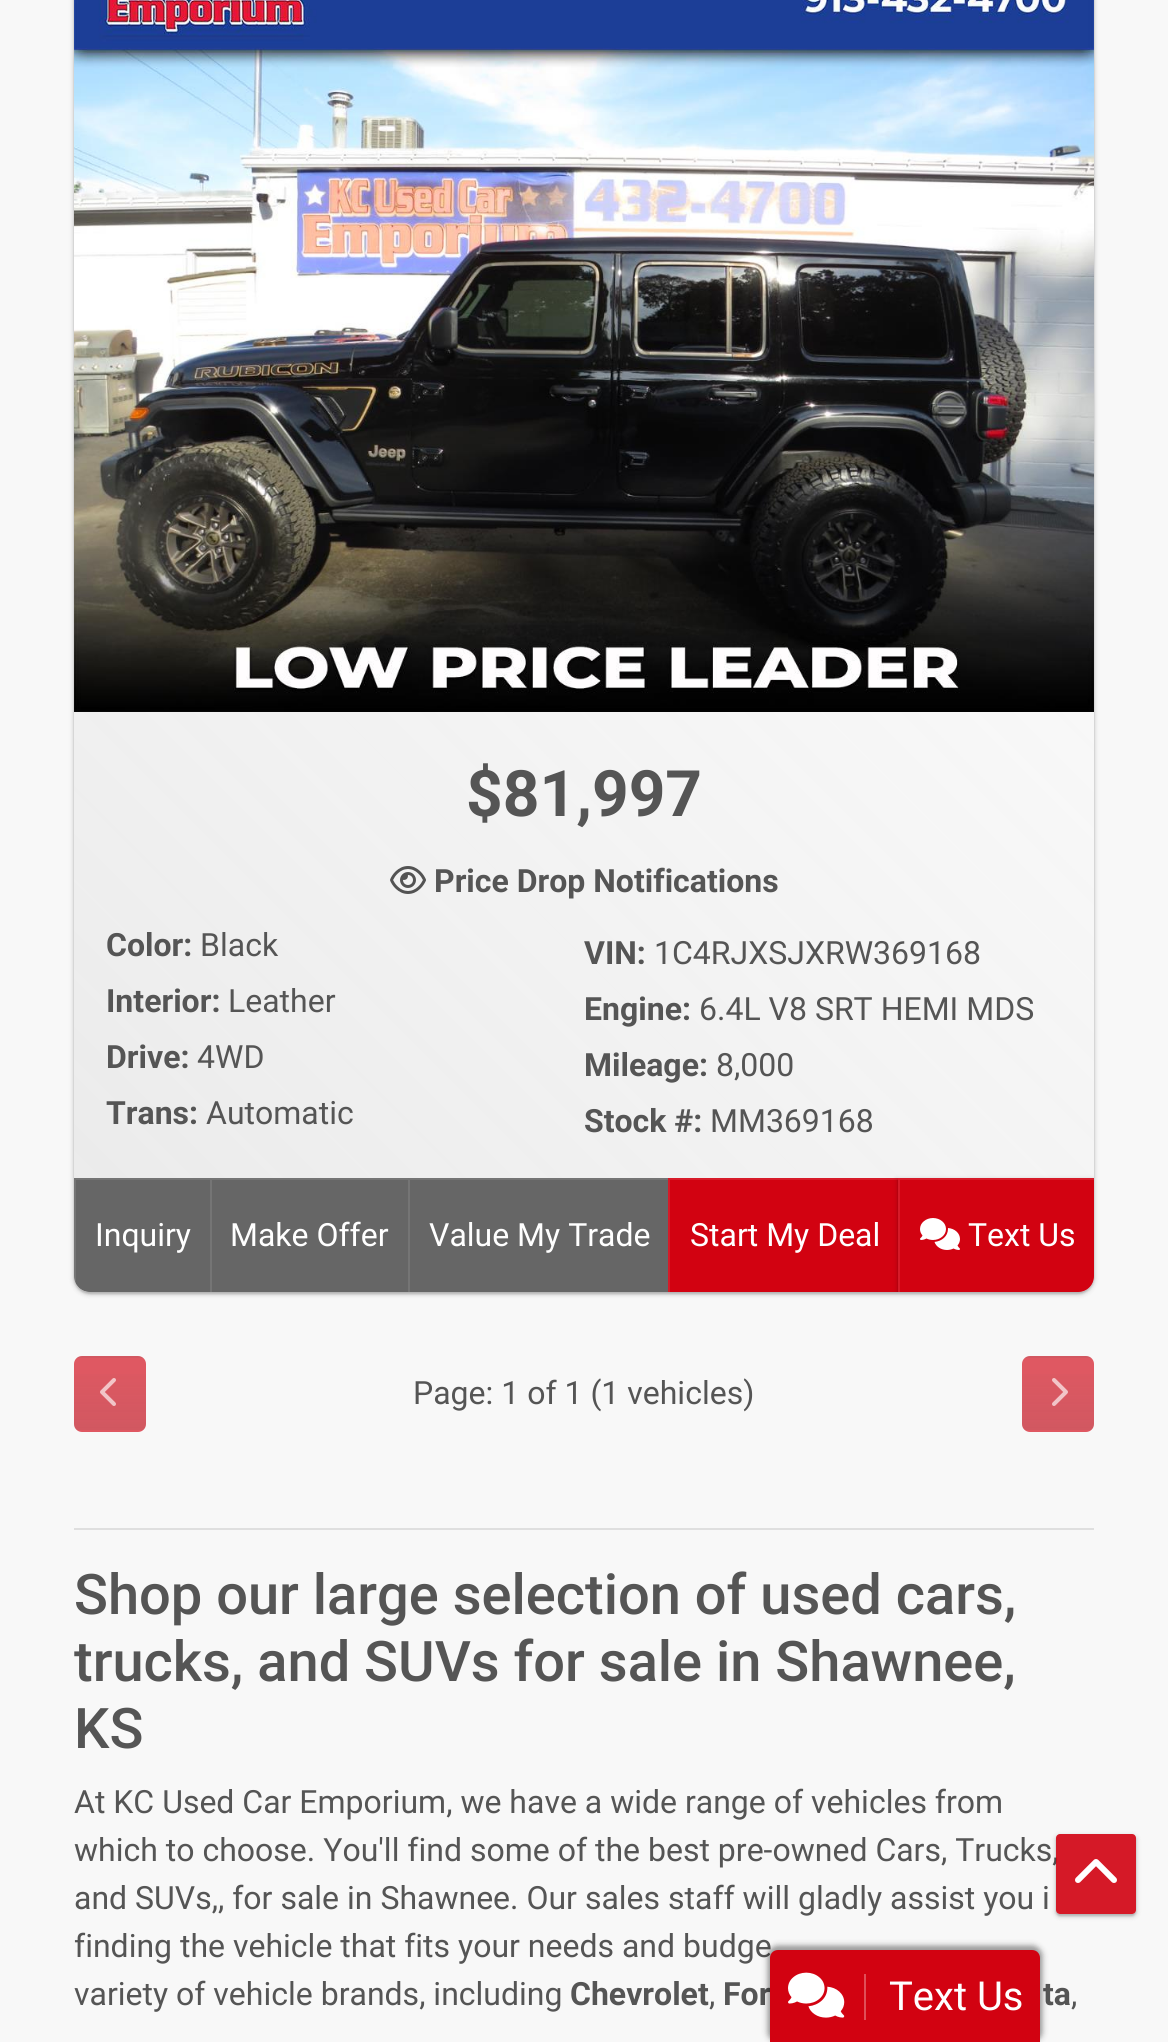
import math
import cairo

surface = cairo.ImageSurface(cairo.Format.RGB24, 1168, 2042)
ctx = cairo.Context(surface)
options = cairo.FontOptions()
options.set_hint_metrics(cairo.HintMetrics.OFF)
options.set_hint_style(cairo.HintStyle.NONE)
ctx.set_font_options(options)
ctx.set_miter_limit(4)


def ink(r, g, b):
    ctx.set_source_rgb(r / 255, g / 255, b / 255)


def write(x, y, s, family, size, color, bold=False, italic=False):
    ctx.select_font_face(family, cairo.FontSlant.ITALIC if italic else cairo.FontSlant.NORMAL, cairo.FontWeight.BOLD if bold else cairo.FontWeight.NORMAL)
    ctx.set_font_size(size)
    ink(*color)
    ctx.move_to(x, y)
    ctx.show_text(s)


def block(x, y, w, h, *color):
    ink(*color)
    ctx.rectangle(x, y, w, h)
    ctx.fill()


def round_path(x, y, w, h, r):
    ctx.new_sub_path()
    for i, (u, v) in enumerate([(x + w - r, y + h - r), (x + r, y + h - r), (x + r, y + r), (x + w - r, y + r)]):
        ctx.arc(u, v, r, i * math.pi / 2, (i + 1) * math.pi / 2)
    ctx.close_path()


def blur_box(x, y, w, h, r, blur, alpha):
    ctx.push_group_with_content(cairo.Content.ALPHA)
    ctx.set_operator(cairo.Operator.SOURCE)
    for i in range(15, -16, -2):
        e = blur * i / 6
        if min(w, h) + 2 * e > 0:
            ctx.set_source_rgba(0, 0, 0, alpha * math.erfc((i - 1) / 8.5) / 2)
            round_path(x - e, y - e, w + 2 * e, h + 2 * e, max(0, min(r + e + blur * .6, min(w, h) / 2 + e)))
            ctx.fill()
    ctx.mask(ctx.pop_group())


def paste(path, x, y, w, h):
    ctx.save()
    ctx.set_source_surface(cairo.ImageSurface.create_from_png(path), x, y)
    ctx.rectangle(x, y, w, h)
    ctx.fill()
    ctx.restore()


s1 = dict(family="Roboto", size=64, color=(85, 85, 85), bold=True)
s2 = dict(family="Roboto", size=32, color=(85, 85, 85), bold=True)
s3 = dict(family="Roboto", size=32, color=(85, 85, 85))
s4 = dict(family="Roboto", size=32, color=(255, 255, 255))
s5 = dict(family="Roboto Medium", size=56, color=(85, 85, 85))
s6 = dict(family="Roboto", size=40, color=(255, 255, 255))

ink(248, 248, 248)
ctx.paint()
ctx.save()
ctx.set_fill_rule(cairo.FillRule.EVEN_ODD)
ctx.new_path()
ctx.move_to(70, 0)
ctx.line_to(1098, 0)
ctx.line_to(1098, 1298)
ctx.line_to(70, 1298)
ctx.close_path()
ctx.move_to(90, -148)
ctx.line_to(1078, -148)
ctx.curve_to(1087, -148, 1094, -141, 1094, -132)
ctx.line_to(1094, 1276)
ctx.curve_to(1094, 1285, 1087, 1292, 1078, 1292)
ctx.line_to(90, 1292)
ctx.curve_to(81, 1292, 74, 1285, 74, 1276)
ctx.line_to(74, -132)
ctx.curve_to(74, -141, 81, -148, 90, -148)
ctx.close_path()
ctx.clip()
ink(0, 0, 0)
blur_box(74, -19, 1020, 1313, 16, 1, 0.2)
ctx.restore()
ctx.save()
ctx.set_fill_rule(cairo.FillRule.EVEN_ODD)
ctx.new_path()
ctx.move_to(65, 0)
ctx.line_to(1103, 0)
ctx.line_to(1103, 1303)
ctx.line_to(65, 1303)
ctx.close_path()
ctx.move_to(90, -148)
ctx.line_to(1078, -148)
ctx.curve_to(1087, -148, 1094, -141, 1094, -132)
ctx.line_to(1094, 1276)
ctx.curve_to(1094, 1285, 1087, 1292, 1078, 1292)
ctx.line_to(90, 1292)
ctx.curve_to(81, 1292, 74, 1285, 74, 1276)
ctx.line_to(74, -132)
ctx.curve_to(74, -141, 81, -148, 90, -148)
ctx.close_path()
ctx.clip()
ink(0, 0, 0)
blur_box(72, -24, 1024, 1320, 18, 2, 0.1)
ctx.restore()
ctx.set_source_rgba(1, 1, 1, 0.6)
round_path(74, -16, 1020, 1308, 16)
ctx.fill()
gradient = cairo.LinearGradient(-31, 1187, 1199, -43)
gradient.add_color_stop_rgba(0, 0.902, 0.902, 0.902, 0.8)
gradient.add_color_stop_rgba(1, 1, 1, 1, 0.6)
ctx.set_source(gradient)
round_path(74, -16, 1020, 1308, 16)
ctx.fill()
paste("pic1.png", 74, 0, 1020, 712)
write(466, 816, "$81,997", **s1)
paste("pic2.png", 390, 866, 36, 28)
write(434, 892, "Price Drop Notifications", **s2)
write(106, 956, "Color:", **s2)
write(200, 956, "Black", **s3)
write(106, 1012, "Interior:", **s2)
write(228, 1012, "Leather", **s3)
write(106, 1068, "Drive:", **s2)
write(197, 1068, "4WD", **s3)
write(106, 1124, "Trans:", **s2)
write(206, 1124, "Automatic", **s3)
write(584, 964, "VIN:", **s2)
write(654, 964, "1C4RJXSJXRW369168", **s3)
write(584, 1020, "Engine:", **s2)
write(699, 1020, "6.4L V8 SRT HEMI MDS", **s3)
write(584, 1076, "Mileage:", **s2)
write(716, 1076, "8,000", **s3)
write(584, 1132, "Stock #:", **s2)
write(710, 1132, "MM369168", **s3)
ink(102, 102, 102)
ctx.new_path()
ctx.move_to(74, 1178)
ctx.line_to(210, 1178)
ctx.line_to(210, 1292)
ctx.line_to(90, 1292)
ctx.curve_to(81, 1292, 74, 1285, 74, 1276)
ctx.close_path()
ctx.fill()
ink(117, 117, 117)
ctx.new_path()
ctx.move_to(74, 1178)
ctx.line_to(210, 1178)
ctx.line_to(210, 1180)
ctx.line_to(76, 1180)
ctx.close_path()
ctx.fill()
ctx.set_source_rgba(1, 1, 1, 0.1)
ctx.new_path()
ctx.move_to(74, 1178)
ctx.line_to(74, 1276)
ctx.curve_to(74, 1279, 75, 1281, 76, 1284)
ctx.line_to(76, 1180)
ctx.close_path()
ctx.fill()
write(95, 1246, "Inquiry", **s4)
block(210, 1178, 458, 114, 102, 102, 102)
ink(117, 117, 117)
ctx.new_path()
ctx.move_to(210, 1178)
ctx.line_to(408, 1178)
ctx.line_to(408, 1180)
ctx.line_to(212, 1180)
ctx.close_path()
ctx.fill()
ctx.set_source_rgba(1, 1, 1, 0.1)
ctx.new_path()
ctx.move_to(210, 1292)
ctx.line_to(210, 1178)
ctx.line_to(212, 1180)
ctx.line_to(212, 1292)
ctx.close_path()
ctx.fill()
write(230, 1246, "Make Offer", **s4)
ink(117, 117, 117)
ctx.new_path()
ctx.move_to(408, 1178)
ctx.line_to(668, 1178)
ctx.line_to(668, 1180)
ctx.line_to(410, 1180)
ctx.close_path()
ctx.fill()
ctx.set_source_rgba(1, 1, 1, 0.1)
ctx.new_path()
ctx.move_to(408, 1292)
ctx.line_to(408, 1178)
ctx.line_to(410, 1180)
ctx.line_to(410, 1292)
ctx.close_path()
ctx.fill()
write(429, 1246, "Value My Trade", **s4)
block(668, 1178, 230, 114, 210, 2, 17)
ink(215, 27, 41)
ctx.new_path()
ctx.move_to(668, 1178)
ctx.line_to(898, 1178)
ctx.line_to(898, 1180)
ctx.line_to(670, 1180)
ctx.close_path()
ctx.fill()
ctx.set_source_rgba(1, 1, 1, 0.1)
ctx.new_path()
ctx.move_to(668, 1292)
ctx.line_to(668, 1178)
ctx.line_to(670, 1180)
ctx.line_to(670, 1292)
ctx.close_path()
ctx.fill()
write(690, 1246, "Start My Deal", **s4)
ctx.save()
round_path(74, -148, 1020, 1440, 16)
ctx.clip()
ink(0, 0, 0)
blur_box(898, 1180, 196, 114, 0, 1, 0.2)
blur_box(896, 1178, 200, 118, 0, 2, 0.1)
ctx.restore()
ink(210, 2, 17)
ctx.new_path()
ctx.move_to(898, 1178)
ctx.line_to(1094, 1178)
ctx.line_to(1094, 1276)
ctx.curve_to(1094, 1285, 1087, 1292, 1078, 1292)
ctx.line_to(898, 1292)
ctx.close_path()
ctx.fill()
ink(215, 27, 41)
ctx.new_path()
ctx.move_to(898, 1178)
ctx.line_to(1094, 1178)
ctx.line_to(1094, 1180)
ctx.line_to(900, 1180)
ctx.close_path()
ctx.fill()
ctx.set_source_rgba(1, 1, 1, 0.1)
ctx.new_path()
ctx.move_to(898, 1292)
ctx.line_to(898, 1178)
ctx.line_to(900, 1180)
ctx.line_to(900, 1292)
ctx.close_path()
ctx.fill()
paste("pic3.png", 920, 1218, 40, 32)
write(968, 1246, "Text Us", **s4)
ink(223, 88, 98)
round_path(74, 1356, 72, 76, 8)
ctx.fill()
ctx.save()
round_path(74, 1356, 72, 76, 8)
ctx.clip()
gradient = cairo.LinearGradient(110, 1286, 110, 1358)
gradient.add_color_stop_rgba(0, 0.341, 0.341, 0.341, 0)
gradient.add_color_stop_rgba(1, 0.341, 0.341, 0.341, 0.1)
ctx.set_source(gradient)
ctx.rectangle(74, 1356, 72, 2)
ctx.fill()
gradient = cairo.LinearGradient(110, 1358, 110, 1430)
gradient.add_color_stop_rgba(0, 0.341, 0.341, 0.341, 0)
gradient.add_color_stop_rgba(1, 0.341, 0.341, 0.341, 0.1)
ctx.set_source(gradient)
ctx.rectangle(74, 1374, 72, 56)
ctx.fill()
ctx.restore()
paste("pic4.png", 100, 1378, 16, 28)
write(413, 1404, "Page: 1 of 1 (1 vehicles)", **s3)
ink(223, 88, 98)
round_path(1022, 1356, 72, 76, 8)
ctx.fill()
ctx.save()
round_path(1022, 1356, 72, 76, 8)
ctx.clip()
gradient = cairo.LinearGradient(1058, 1286, 1058, 1358)
gradient.add_color_stop_rgba(0, 0.341, 0.341, 0.341, 0)
gradient.add_color_stop_rgba(1, 0.341, 0.341, 0.341, 0.1)
ctx.set_source(gradient)
ctx.rectangle(1022, 1356, 72, 2)
ctx.fill()
gradient = cairo.LinearGradient(1058, 1358, 1058, 1430)
gradient.add_color_stop_rgba(0, 0.341, 0.341, 0.341, 0)
gradient.add_color_stop_rgba(1, 0.341, 0.341, 0.341, 0.1)
ctx.set_source(gradient)
ctx.rectangle(1022, 1374, 72, 56)
ctx.fill()
ctx.restore()
paste("pic5.png", 1052, 1378, 16, 28)
block(74, 1528, 1020, 2, 223, 223, 223)
write(74, 1614, "Shop our large selection of used cars,", **s5)
write(74, 1681, "trucks, and SUVs for sale in Shawnee,", **s5)
write(74, 1748, "KS", **s5)
write(74, 1813, "At KC Used Car Emporium, we have a wide range of vehicles from", **s3)
write(74, 1861, "which to choose. You'll find some of the best pre-owned Cars, Trucks,", **s3)
write(74, 1909, "and SUVs,, for sale in Shawnee. Our sales staff will gladly assist you i", **s3)
write(74, 1957, "finding the vehicle that fits your needs and budge", **s3)
write(74, 2005, "variety of vehicle brands, including", **s3)
write(570, 2005, "Chevrolet", **s2)
write(709, 2005, ",", **s3)
write(723, 2005, "For", **s2)
write(1043, 2005, "ta", **s2)
write(1071, 2005, ",", **s3)
ctx.save()
ctx.set_fill_rule(cairo.FillRule.EVEN_ODD)
ctx.new_path()
ctx.move_to(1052, 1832)
ctx.line_to(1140, 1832)
ctx.line_to(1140, 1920)
ctx.line_to(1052, 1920)
ctx.close_path()
ctx.move_to(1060, 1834)
ctx.line_to(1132, 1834)
ctx.curve_to(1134, 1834, 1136, 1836, 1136, 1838)
ctx.line_to(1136, 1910)
ctx.curve_to(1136, 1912, 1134, 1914, 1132, 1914)
ctx.line_to(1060, 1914)
ctx.curve_to(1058, 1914, 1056, 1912, 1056, 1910)
ctx.line_to(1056, 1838)
ctx.curve_to(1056, 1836, 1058, 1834, 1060, 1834)
ctx.close_path()
ctx.clip()
ink(0, 0, 0)
blur_box(1056, 1836, 80, 80, 4, 1, 0.2)
ctx.restore()
ctx.save()
ctx.set_fill_rule(cairo.FillRule.EVEN_ODD)
ctx.new_path()
ctx.move_to(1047, 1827)
ctx.line_to(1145, 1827)
ctx.line_to(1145, 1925)
ctx.line_to(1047, 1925)
ctx.close_path()
ctx.move_to(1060, 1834)
ctx.line_to(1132, 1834)
ctx.curve_to(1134, 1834, 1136, 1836, 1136, 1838)
ctx.line_to(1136, 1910)
ctx.curve_to(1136, 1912, 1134, 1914, 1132, 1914)
ctx.line_to(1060, 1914)
ctx.curve_to(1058, 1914, 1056, 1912, 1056, 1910)
ctx.line_to(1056, 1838)
ctx.curve_to(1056, 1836, 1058, 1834, 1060, 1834)
ctx.close_path()
ctx.clip()
ink(0, 0, 0)
blur_box(1054, 1834, 84, 84, 6, 2, 0.1)
ctx.restore()
ctx.set_source_rgba(0.824, 0.008, 0.067, 0.9)
round_path(1056, 1834, 80, 80, 4)
ctx.fill()
paste("pic6.png", 1075, 1859, 42, 24)
ink(0, 0, 0)
blur_box(768, 1946, 274, 96, 10, 2, 0.25)
blur_box(766, 1944, 278, 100, 12, 3, 0.15)
ink(210, 2, 17)
ctx.new_path()
ctx.move_to(778, 1950)
ctx.line_to(1032, 1950)
ctx.curve_to(1036.5, 1950, 1040, 1953.5, 1040, 1958)
ctx.line_to(1040, 2042)
ctx.line_to(770, 2042)
ctx.line_to(770, 1958)
ctx.curve_to(770, 1953.5, 773.5, 1950, 778, 1950)
ctx.close_path()
ctx.fill()
block(864, 1974, 2, 46, 224, 78, 88)
paste("pic7.png", 788, 1972, 57, 46)
write(889, 2010, "Text Us", **s6)
surface.write_to_png("screenshot.png")
